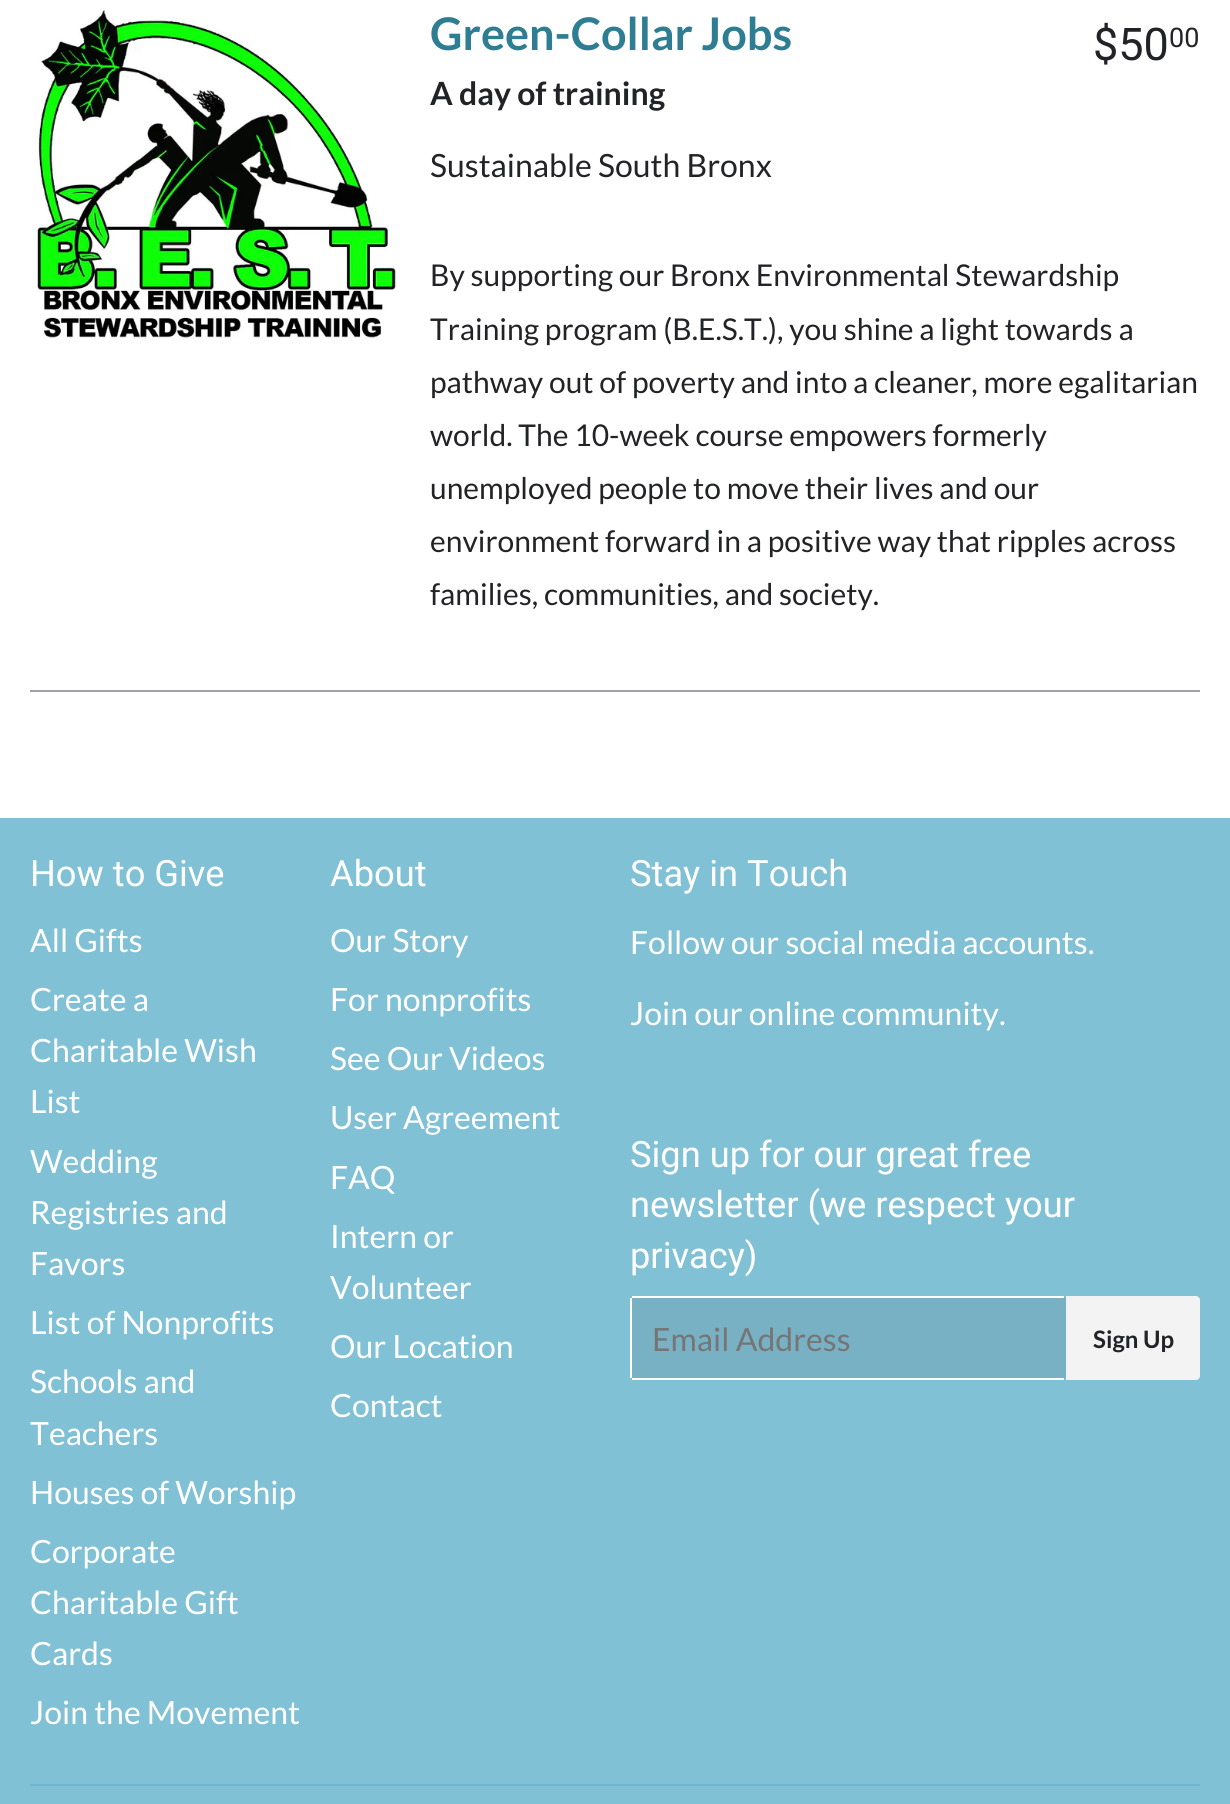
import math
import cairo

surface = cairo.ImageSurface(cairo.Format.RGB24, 1230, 1804)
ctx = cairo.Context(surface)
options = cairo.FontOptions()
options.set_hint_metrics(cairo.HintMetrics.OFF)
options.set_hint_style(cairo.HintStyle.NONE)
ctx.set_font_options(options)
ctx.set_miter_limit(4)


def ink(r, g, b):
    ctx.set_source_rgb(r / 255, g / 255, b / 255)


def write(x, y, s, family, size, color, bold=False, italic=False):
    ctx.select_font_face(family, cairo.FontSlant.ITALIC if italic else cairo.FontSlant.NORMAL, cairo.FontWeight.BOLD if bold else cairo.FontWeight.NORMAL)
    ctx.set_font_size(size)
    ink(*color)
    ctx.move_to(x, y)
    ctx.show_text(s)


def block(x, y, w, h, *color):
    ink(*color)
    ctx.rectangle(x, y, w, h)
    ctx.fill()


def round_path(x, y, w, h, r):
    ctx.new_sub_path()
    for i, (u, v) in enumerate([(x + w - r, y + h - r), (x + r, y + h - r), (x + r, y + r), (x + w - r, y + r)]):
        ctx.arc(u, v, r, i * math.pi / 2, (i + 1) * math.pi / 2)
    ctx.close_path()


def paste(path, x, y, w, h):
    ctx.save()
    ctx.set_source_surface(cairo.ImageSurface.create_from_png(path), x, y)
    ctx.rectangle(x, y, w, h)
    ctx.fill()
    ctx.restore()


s1 = dict(family="Lato", size=45, color=(47, 125, 147), bold=True)
s2 = dict(family="Lato", size=32, color=(34, 35, 38), bold=True)
s3 = dict(family="Lato", size=32, color=(34, 35, 38))
s4 = dict(family="Roboto", size=45, color=(34, 35, 38))
s5 = dict(family="Roboto", size=27, color=(34, 35, 38))
s6 = dict(family="Lato", size=30, color=(34, 35, 38))
s7 = dict(family="Roboto", size=36.25, color=(255, 255, 255))
s8 = dict(family="Lato", size=32, color=(255, 255, 255))
s9 = dict(family="Lato", size=32, color=(117, 117, 117))
s10 = dict(family="Lato", size=24, color=(34, 35, 38), bold=True)

ink(255, 255, 255)
ctx.paint()
paste("pic1.png", 36, 8, 361, 331)
write(430, 50, "Green-Collar Jobs", **s1)
write(430, 105, "A day of training", **s2)
write(430, 177, "Sustainable South Bronx", **s3)
write(1093, 60, "$50", **s4)
write(1169, 47, "00", **s5)
write(430, 286, "By supporting our Bronx Environmental Stewardship", **s6)
write(430, 340, "Training program (B.E.S.T.), you shine a light towards a", **s6)
write(430, 393, "pathway out of poverty and into a cleaner, more egalitarian", **s6)
write(430, 446, "world. The 10-week course empowers formerly", **s6)
write(430, 499, "unemployed people to move their lives and our", **s6)
write(430, 552, "environment forward in a positive way that ripples across", **s6)
write(430, 605, "families, communities, and society.", **s6)
block(30, 690, 1170, 2, 158, 161, 169)
block(0, 818, 1230, 986, 129, 193, 213)
write(30, 886, "How to Give", **s7)
write(30, 952, "All Gifts", **s8)
write(30, 1011, "Create a", **s8)
write(30, 1062, "Charitable Wish", **s8)
write(30, 1113, "List", **s8)
write(30, 1173, "Wedding", **s8)
write(30, 1224, "Registries and", **s8)
write(30, 1275, "Favors", **s8)
write(30, 1334, "List of Nonprofits", **s8)
write(30, 1393, "Schools and", **s8)
write(30, 1445, "Teachers", **s8)
write(30, 1504, "Houses of Worship", **s8)
write(30, 1563, "Corporate", **s8)
write(30, 1614, "Charitable Gift", **s8)
write(30, 1665, "Cards", **s8)
write(30, 1724, "Join the Movement", **s8)
write(330, 886, "About", **s7)
write(330, 952, "Our Story", **s8)
write(330, 1011, "For nonprofits", **s8)
write(330, 1070, "See Our Videos", **s8)
write(330, 1129, "User Agreement", **s8)
write(330, 1189, "FAQ", **s8)
write(330, 1248, "Intern or", **s8)
write(330, 1299, "Volunteer", **s8)
write(330, 1358, "Our Location", **s8)
write(330, 1417, "Contact", **s8)
write(630, 886, "Stay in Touch", **s7)
write(630, 954, "Follow our social media accounts.", **s8)
write(630, 1025, "Join our online community.", **s8)
write(630, 1167, "Sign up for our great free", **s7)
write(630, 1217, "newsletter (we respect your", **s7)
write(630, 1268, "privacy)", **s7)
ink(120, 177, 196)
round_path(630, 1296, 436, 84, 4)
ctx.fill()
block(632, 1296, 432, 2, 255, 255, 255)
block(632, 1378, 432, 2, 255, 255, 255)
block(630, 1298, 2, 80, 255, 255, 255)
write(652, 1351, "Email Address", **s9)
ink(243, 243, 243)
ctx.new_path()
ctx.move_to(1066, 1296)
ctx.line_to(1196, 1296)
ctx.curve_to(1198, 1296, 1200, 1298, 1200, 1300)
ctx.line_to(1200, 1376)
ctx.curve_to(1200, 1378, 1198, 1380, 1196, 1380)
ctx.line_to(1066, 1380)
ctx.close_path()
ctx.fill()
write(1093, 1348, "Sign Up", **s10)
block(30, 1784, 1170, 2, 110, 184, 207)
surface.write_to_png("screenshot.png")
